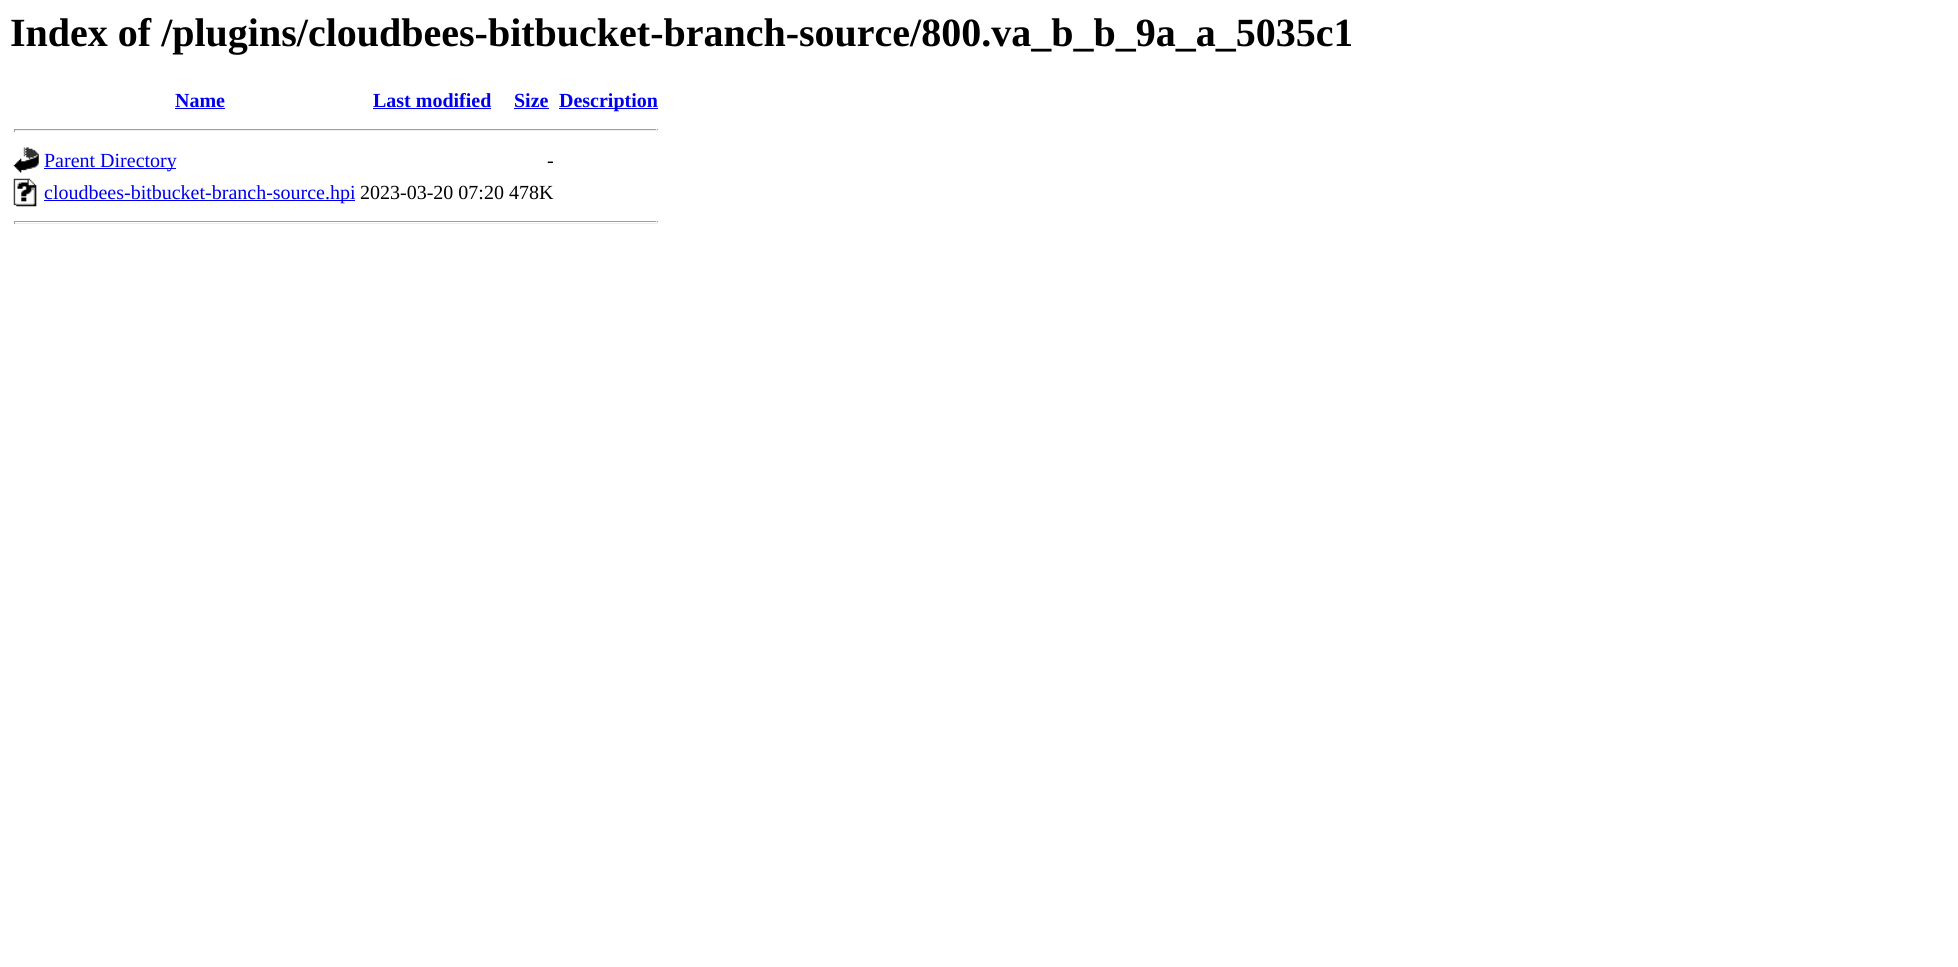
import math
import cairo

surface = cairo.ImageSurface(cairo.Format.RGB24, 1958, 967)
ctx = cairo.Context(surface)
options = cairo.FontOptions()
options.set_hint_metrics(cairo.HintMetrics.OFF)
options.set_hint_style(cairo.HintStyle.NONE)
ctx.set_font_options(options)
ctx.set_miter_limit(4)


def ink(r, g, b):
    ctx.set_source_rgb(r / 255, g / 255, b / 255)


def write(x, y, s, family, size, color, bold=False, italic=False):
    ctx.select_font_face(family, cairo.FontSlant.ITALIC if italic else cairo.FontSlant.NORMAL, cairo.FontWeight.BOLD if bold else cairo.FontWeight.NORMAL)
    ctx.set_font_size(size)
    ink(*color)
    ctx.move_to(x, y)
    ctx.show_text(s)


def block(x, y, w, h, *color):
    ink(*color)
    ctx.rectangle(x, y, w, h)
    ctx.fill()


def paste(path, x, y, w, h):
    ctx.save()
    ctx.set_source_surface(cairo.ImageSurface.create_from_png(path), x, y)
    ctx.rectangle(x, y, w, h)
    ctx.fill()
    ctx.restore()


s1 = dict(family="Liberation Serif", size=40, color=(0, 0, 0), bold=True)
s2 = dict(family="Liberation Serif", size=20, color=(0, 0, 238), bold=True)
s3 = dict(family="Liberation Serif", size=20, color=(0, 0, 238))
s4 = dict(family="Liberation Serif", size=20, color=(0, 0, 0))

ink(255, 255, 255)
ctx.paint()
write(10, 46, "Index of /plugins/cloudbees-bitbucket-branch-source/800.va_b_b_9a_a_5035c1", **s1)
write(175, 107, "Name", **s2)
block(175, 108, 50, 1, 0, 0, 238)
write(373, 107, "Last modified", **s2)
block(373, 108, 118, 1, 0, 0, 238)
write(514, 107, "Size", **s2)
block(514, 108, 35, 1, 0, 0, 238)
block(559, 108, 99, 1, 0, 0, 238)
write(559, 107, "Description", **s2)
block(14, 129, 644, 1, 159, 159, 159)
block(656, 129, 1, 3, 238, 238, 238)
block(14, 130, 644, 1, 238, 238, 238)
block(14, 129, 1, 3, 159, 159, 159)
paste("pic1.png", 13, 147, 26, 26)
block(44, 168, 132, 1, 0, 0, 238)
write(44, 167, "Parent Directory", **s3)
write(547, 167, "-", **s4)
paste("pic2.png", 13, 178, 24, 29)
block(44, 200, 311, 1, 0, 0, 238)
write(44, 199, "cloudbees-bitbucket-branch-source.hpi", **s3)
write(360, 199, "2023-03-20 07:20 478K", **s4)
block(14, 221, 644, 1, 159, 159, 159)
block(656, 221, 1, 3, 238, 238, 238)
block(14, 223, 644, 1, 238, 238, 238)
block(14, 221, 1, 3, 159, 159, 159)
surface.write_to_png("screenshot.png")
